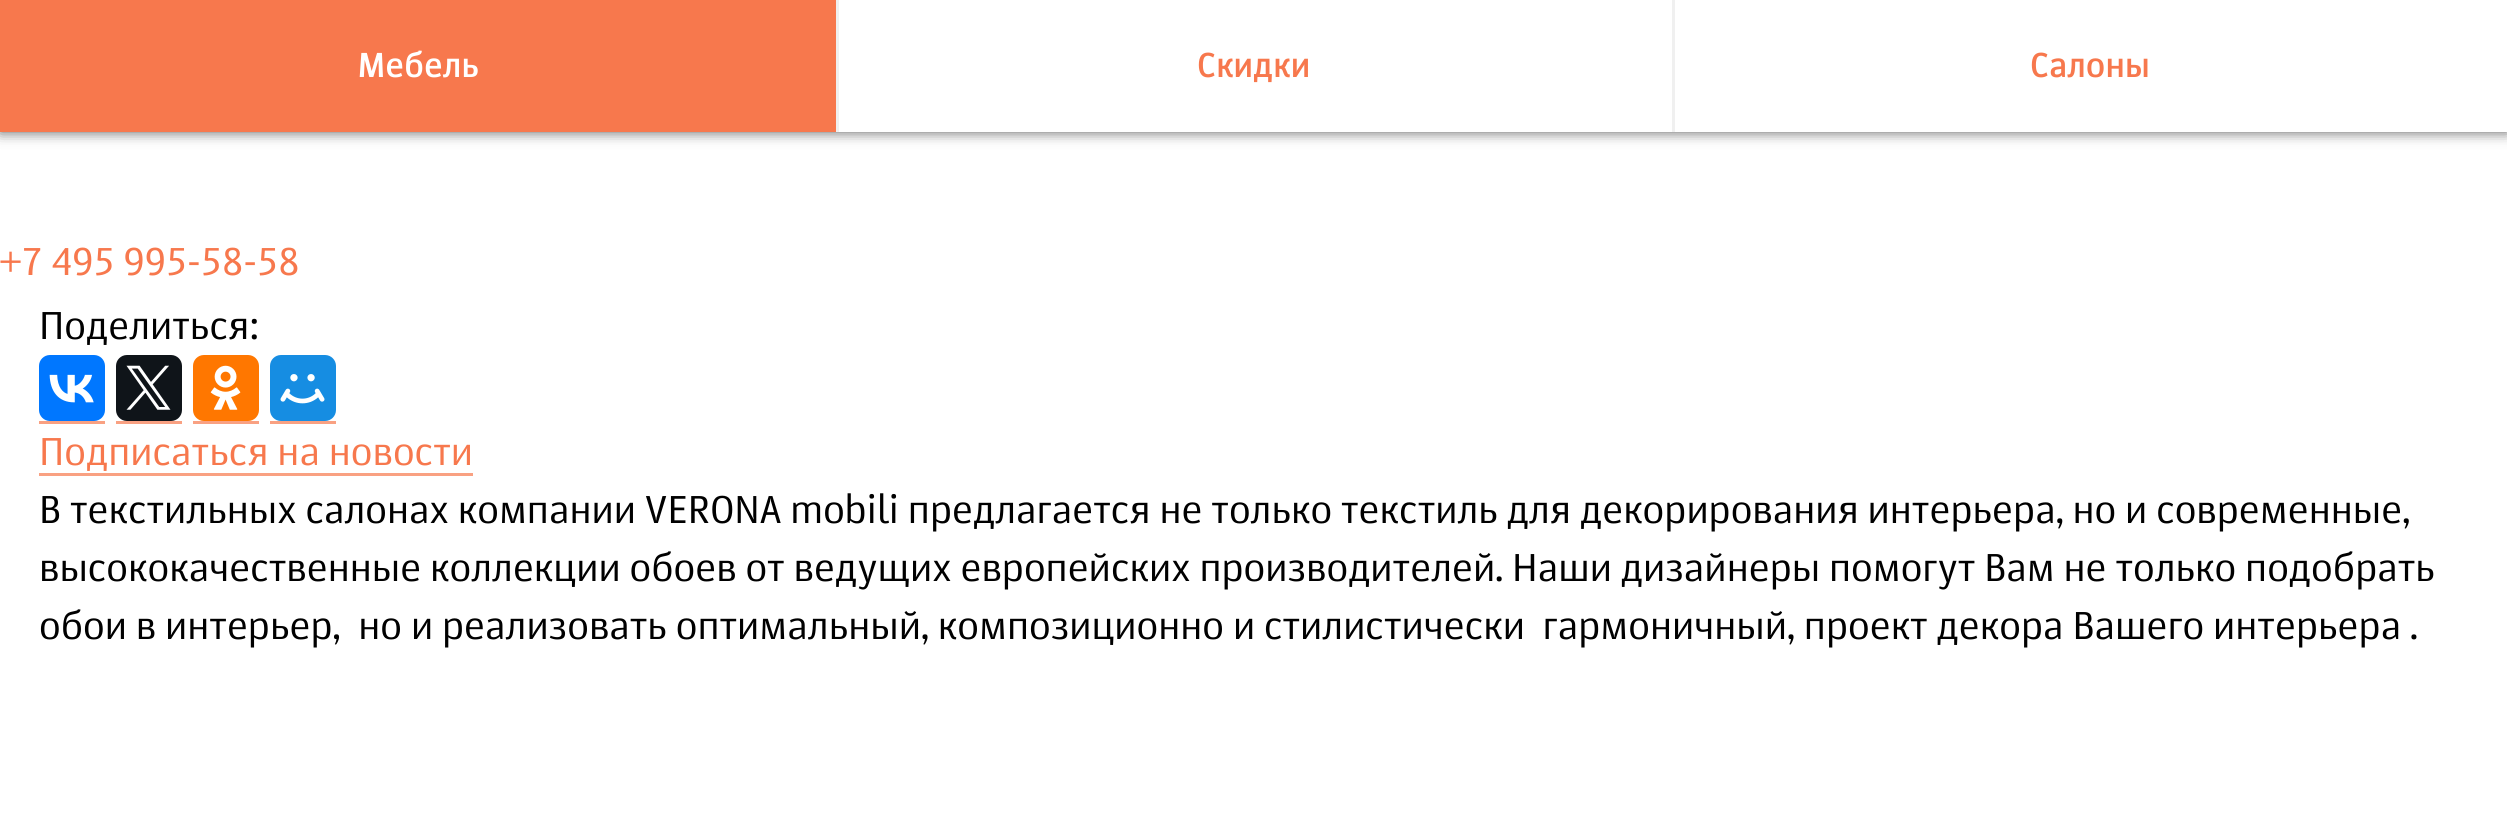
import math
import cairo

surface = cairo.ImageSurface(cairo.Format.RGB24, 2507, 824)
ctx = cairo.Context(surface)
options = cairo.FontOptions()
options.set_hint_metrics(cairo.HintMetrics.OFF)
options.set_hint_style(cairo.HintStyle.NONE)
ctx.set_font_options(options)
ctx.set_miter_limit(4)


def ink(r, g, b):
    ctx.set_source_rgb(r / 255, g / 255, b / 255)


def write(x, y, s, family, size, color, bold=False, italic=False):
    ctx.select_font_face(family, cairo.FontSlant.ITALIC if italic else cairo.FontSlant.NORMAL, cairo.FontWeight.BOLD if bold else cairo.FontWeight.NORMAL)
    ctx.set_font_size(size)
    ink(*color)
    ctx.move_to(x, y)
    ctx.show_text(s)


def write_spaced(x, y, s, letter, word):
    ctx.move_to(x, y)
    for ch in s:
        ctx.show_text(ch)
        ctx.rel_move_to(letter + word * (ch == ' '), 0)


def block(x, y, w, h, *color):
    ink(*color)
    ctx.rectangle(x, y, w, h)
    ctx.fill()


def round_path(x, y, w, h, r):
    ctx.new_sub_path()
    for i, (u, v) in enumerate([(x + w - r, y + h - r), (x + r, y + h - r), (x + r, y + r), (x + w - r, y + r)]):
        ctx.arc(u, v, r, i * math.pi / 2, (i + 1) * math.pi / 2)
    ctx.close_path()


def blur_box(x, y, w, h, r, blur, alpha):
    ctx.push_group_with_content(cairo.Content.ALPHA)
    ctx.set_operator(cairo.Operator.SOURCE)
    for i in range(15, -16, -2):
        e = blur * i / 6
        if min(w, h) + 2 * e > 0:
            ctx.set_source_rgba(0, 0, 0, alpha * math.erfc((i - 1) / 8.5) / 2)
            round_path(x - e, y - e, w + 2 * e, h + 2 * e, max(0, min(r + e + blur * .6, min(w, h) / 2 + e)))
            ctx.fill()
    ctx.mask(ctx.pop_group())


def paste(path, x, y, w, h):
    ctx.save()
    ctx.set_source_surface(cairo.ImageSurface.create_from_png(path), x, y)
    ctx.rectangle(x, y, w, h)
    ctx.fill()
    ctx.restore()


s1 = dict(family="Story", size=38.5, color=(247, 120, 77))
s2 = dict(family="Story", size=38.5, color=(0, 0, 0))

ink(255, 255, 255)
ctx.paint()
ink(50, 50, 50)
blur_box(0, 0, 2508, 132, 0, 7, 0.8)
block(839, 0, 1668, 132, 255, 255, 255)
block(0, 0, 836, 132, 247, 120, 77)
ctx.select_font_face("Story", cairo.FontSlant.NORMAL, cairo.FontWeight.BOLD)
ctx.set_font_size(33)
ink(255, 255, 255)
write_spaced(357, 77, "Мебель", 0.75, 0)
block(836, 0, 3, 132, 240, 240, 240)
ink(247, 120, 77)
write_spaced(1197, 77, "Скидки", 0.75, 0)
block(1672, 0, 3, 132, 240, 240, 240)
ink(247, 120, 77)
write_spaced(2030, 77, "Салоны", 0.75, 0)
write(0, 275, "+7 495 995-58-58", **s1)
write(39, 339, "Поделиться:", **s2)
block(39, 421, 66, 3, 249, 161, 130)
ink(0, 119, 255)
round_path(39, 355, 66, 66, 11)
ctx.fill()
paste("pic1.png", 49, 374, 45, 29)
block(116, 421, 66, 3, 249, 161, 130)
ink(15, 20, 25)
round_path(116, 355, 66, 66, 11)
ctx.fill()
paste("pic2.png", 126, 365, 45, 45)
block(193, 421, 66, 3, 249, 161, 130)
ink(255, 119, 0)
round_path(193, 355, 66, 66, 11)
ctx.fill()
paste("pic3.png", 210, 365, 31, 45)
block(270, 421, 66, 3, 249, 161, 130)
ink(22, 141, 226)
round_path(270, 355, 66, 66, 11)
ctx.fill()
paste("pic4.png", 280, 374, 45, 30)
write(39, 465, "Подписаться на новости", **s1)
block(39, 473, 434, 3, 249, 161, 130)
write(39, 523, "В текстильных салонах компании VERONA mobili предлагается не только текстиль для декорирования интерьера, но и современные,", **s2)
write(39, 581, "высококачественные коллекции обоев от ведущих европейских производителей. Наши дизайнеры помогут Вам не только подобрать", **s2)
write(39, 639, "обои в интерьер,  но и реализовать оптимальный, композиционно и стилистически  гармоничный, проект декора Вашего интерьера .", **s2)
surface.write_to_png("screenshot.png")
